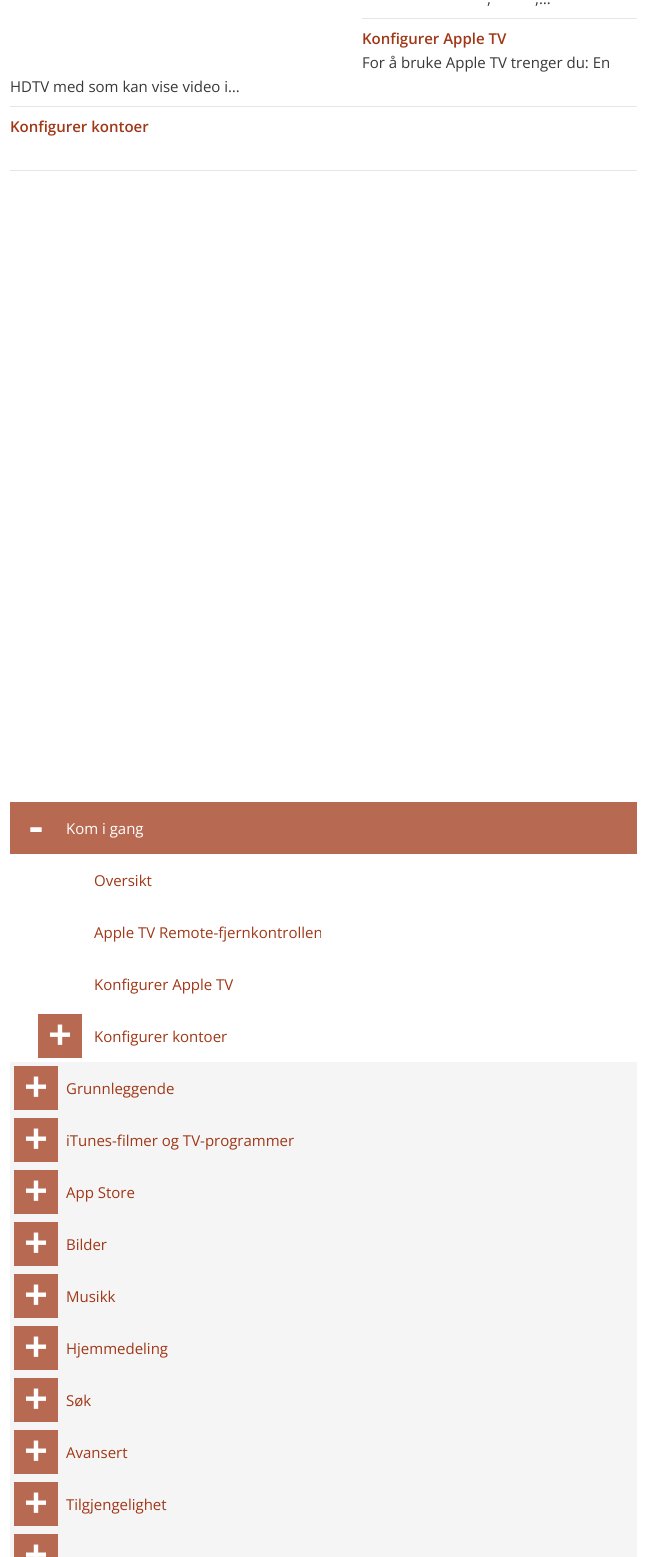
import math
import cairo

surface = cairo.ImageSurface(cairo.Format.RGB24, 647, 1557)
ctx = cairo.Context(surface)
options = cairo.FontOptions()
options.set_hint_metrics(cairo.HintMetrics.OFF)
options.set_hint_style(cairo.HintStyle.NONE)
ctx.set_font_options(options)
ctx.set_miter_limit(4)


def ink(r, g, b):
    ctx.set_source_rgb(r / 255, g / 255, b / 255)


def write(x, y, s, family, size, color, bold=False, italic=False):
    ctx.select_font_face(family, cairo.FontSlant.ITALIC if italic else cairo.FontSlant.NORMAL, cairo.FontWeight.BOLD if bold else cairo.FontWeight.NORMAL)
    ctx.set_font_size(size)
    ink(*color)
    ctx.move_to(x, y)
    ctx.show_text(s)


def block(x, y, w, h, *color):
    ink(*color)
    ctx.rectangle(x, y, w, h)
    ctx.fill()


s1 = dict(family="Open Sans", size=15, color=(56, 56, 56))
s2 = dict(family="Open Sans SemiBold", size=15, color=(160, 55, 23))
s3 = dict(family="Liberation Mono", size=40, color=(255, 255, 255), bold=True)
s4 = dict(family="Open Sans", size=15, color=(255, 255, 255))
s5 = dict(family="Open Sans", size=15, color=(160, 55, 23))

ink(255, 255, 255)
ctx.paint()
write(487, 4, ",", **s1)
write(535, 4, ",…", **s1)
block(362, 18, 275, 1, 230, 230, 230)
write(362, 44, "Konfigurer Apple TV", **s2)
write(362, 68, "For å bruke Apple TV trenger du: En", **s1)
write(10, 92, "HDTV med som kan vise video i…", **s1)
block(10, 106, 627, 1, 230, 230, 230)
write(10, 132, "Konfigurer kontoer", **s2)
block(10, 170, 627, 1, 230, 230, 230)
block(10, 802, 627, 52, 183, 105, 81)
write(24, 840, "-", **s3)
write(66, 834, "Kom i gang", **s4)
write(94, 886, "Oversikt", **s5)
write(94, 938, "Apple TV Remote-fjernkontrollen", **s5)
write(94, 990, "Konfigurer Apple TV", **s5)
block(38, 1014, 44, 44, 183, 105, 81)
write(48, 1048, "+", **s3)
write(94, 1042, "Konfigurer kontoer", **s5)
block(10, 1062, 627, 495, 245, 245, 245)
block(14, 1066, 44, 44, 183, 105, 81)
write(24, 1100, "+", **s3)
write(66, 1094, "Grunnleggende", **s5)
block(14, 1118, 44, 44, 183, 105, 81)
write(24, 1152, "+", **s3)
write(66, 1146, "iTunes-filmer og TV-programmer", **s5)
block(14, 1170, 44, 44, 183, 105, 81)
write(24, 1204, "+", **s3)
write(66, 1198, "App Store", **s5)
block(14, 1222, 44, 44, 183, 105, 81)
write(24, 1256, "+", **s3)
write(66, 1250, "Bilder", **s5)
block(14, 1274, 44, 44, 183, 105, 81)
write(24, 1308, "+", **s3)
write(66, 1302, "Musikk", **s5)
block(14, 1326, 44, 44, 183, 105, 81)
write(24, 1360, "+", **s3)
write(66, 1354, "Hjemmedeling", **s5)
block(14, 1378, 44, 44, 183, 105, 81)
write(24, 1412, "+", **s3)
write(66, 1406, "Søk", **s5)
block(14, 1430, 44, 44, 183, 105, 81)
write(24, 1464, "+", **s3)
write(66, 1458, "Avansert", **s5)
block(14, 1482, 44, 44, 183, 105, 81)
write(24, 1516, "+", **s3)
write(66, 1510, "Tilgjengelighet", **s5)
block(14, 1534, 44, 23, 183, 105, 81)
write(24, 1568, "+", **s3)
surface.write_to_png("screenshot.png")
